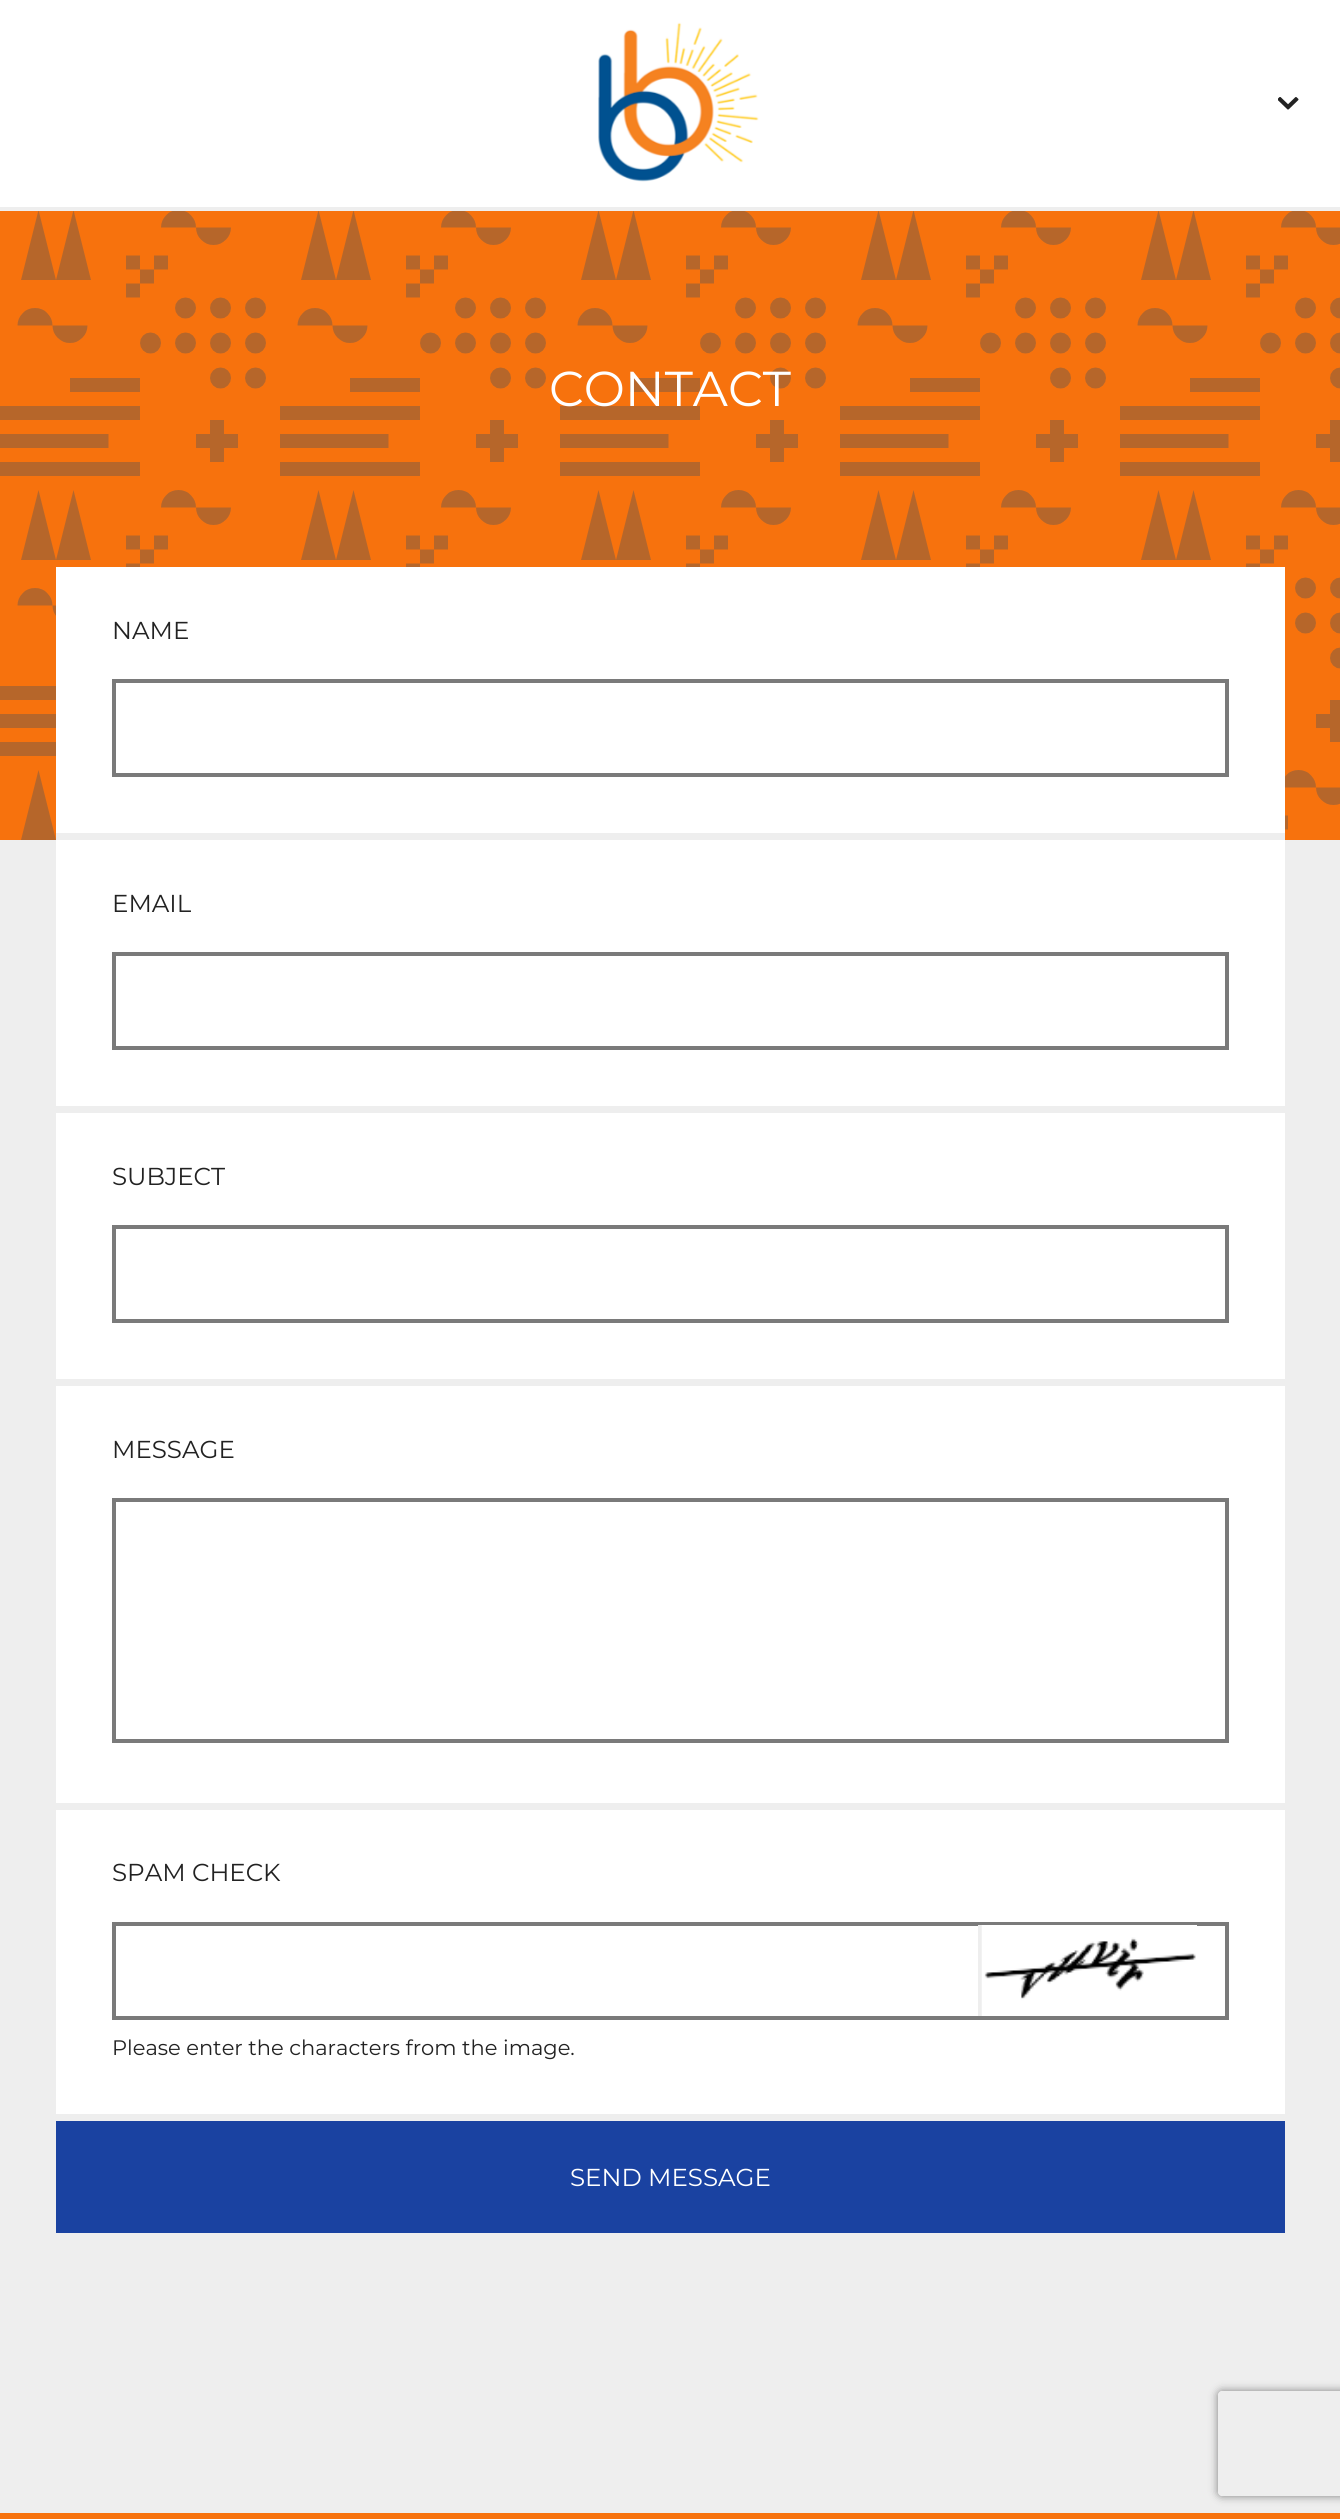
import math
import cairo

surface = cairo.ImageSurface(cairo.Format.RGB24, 1340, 2519)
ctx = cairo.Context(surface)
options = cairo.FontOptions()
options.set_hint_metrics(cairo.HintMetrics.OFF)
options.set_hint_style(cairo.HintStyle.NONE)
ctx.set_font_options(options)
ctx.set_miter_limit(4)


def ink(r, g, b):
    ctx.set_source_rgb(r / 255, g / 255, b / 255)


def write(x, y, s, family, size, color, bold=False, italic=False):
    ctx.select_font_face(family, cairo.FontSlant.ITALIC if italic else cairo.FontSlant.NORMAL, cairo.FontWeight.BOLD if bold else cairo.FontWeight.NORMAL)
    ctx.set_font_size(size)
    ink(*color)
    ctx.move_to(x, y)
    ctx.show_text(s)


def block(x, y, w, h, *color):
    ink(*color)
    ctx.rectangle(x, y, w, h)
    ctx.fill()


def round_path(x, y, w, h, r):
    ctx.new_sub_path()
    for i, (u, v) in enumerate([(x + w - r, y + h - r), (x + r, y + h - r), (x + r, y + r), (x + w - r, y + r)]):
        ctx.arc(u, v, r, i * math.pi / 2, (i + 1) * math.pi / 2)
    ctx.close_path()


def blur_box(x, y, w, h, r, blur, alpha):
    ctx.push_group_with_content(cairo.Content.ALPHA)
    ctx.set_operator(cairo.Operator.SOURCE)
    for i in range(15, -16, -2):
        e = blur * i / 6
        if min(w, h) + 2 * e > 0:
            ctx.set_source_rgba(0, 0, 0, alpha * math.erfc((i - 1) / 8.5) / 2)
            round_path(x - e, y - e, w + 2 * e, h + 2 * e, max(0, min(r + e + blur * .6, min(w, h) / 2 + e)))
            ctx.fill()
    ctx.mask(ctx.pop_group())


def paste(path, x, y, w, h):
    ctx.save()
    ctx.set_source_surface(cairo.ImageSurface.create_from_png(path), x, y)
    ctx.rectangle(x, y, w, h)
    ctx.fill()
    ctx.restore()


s1 = dict(family="Montserrat", size=49, color=(255, 255, 255))
s2 = dict(family="Montserrat", size=24.5, color=(34, 34, 34))
s3 = dict(family="Montserrat", size=21, color=(34, 34, 34))
s4 = dict(family="Montserrat", size=24.5, color=(255, 255, 255))

ink(238, 238, 238)
ctx.paint()
block(0, 0, 1340, 207, 255, 255, 255)
paste("pic1.png", 598, 22, 161, 160)
paste("pic2.png", 1278, 97, 21, 13)
block(0, 211, 1340, 629, 247, 114, 13)
paste("pic3.png", 0, 211, 1340, 629)
write(549, 406, "CONTACT", **s1)
block(56, 567, 1229, 1547, 255, 255, 255)
block(56, 833, 1229, 7, 238, 238, 238)
write(112, 639, "NAME", **s2)
ctx.rectangle(114, 681, 1113, 94)
ink(122, 122, 122)
ctx.set_line_width(4)
ctx.stroke()
block(56, 1106, 1229, 7, 238, 238, 238)
write(112, 912, "EMAIL", **s2)
ctx.rectangle(114, 954, 1113, 94)
ink(122, 122, 122)
ctx.stroke()
block(56, 1379, 1229, 7, 238, 238, 238)
write(112, 1185, "SUBJECT", **s2)
ctx.rectangle(114, 1227, 1113, 94)
ink(122, 122, 122)
ctx.stroke()
block(56, 1803, 1229, 7, 238, 238, 238)
write(112, 1458, "MESSAGE", **s2)
ctx.rectangle(114, 1500, 1113, 241)
ink(122, 122, 122)
ctx.stroke()
write(112, 1881, "SPAM CHECK", **s2)
ctx.rectangle(114, 1924, 1113, 94)
ink(122, 122, 122)
ctx.stroke()
block(978, 1925, 4, 91, 238, 238, 238)
paste("pic4.png", 981, 1925, 216, 91)
write(112, 2055, "Please enter the characters from the image.", **s3)
block(56, 2121, 1229, 112, 26, 66, 161)
write(570, 2186, "SEND MESSAGE", **s4)
ctx.save()
ctx.set_fill_rule(cairo.FillRule.EVEN_ODD)
ctx.new_path()
ctx.move_to(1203, 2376)
ctx.line_to(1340, 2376)
ctx.line_to(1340, 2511)
ctx.line_to(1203, 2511)
ctx.close_path()
ctx.move_to(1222, 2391)
ctx.line_to(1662, 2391)
ctx.curve_to(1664, 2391, 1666, 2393, 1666, 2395)
ctx.line_to(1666, 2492)
ctx.curve_to(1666, 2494, 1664, 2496, 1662, 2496)
ctx.line_to(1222, 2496)
ctx.curve_to(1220, 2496, 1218, 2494, 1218, 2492)
ctx.line_to(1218, 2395)
ctx.curve_to(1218, 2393, 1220, 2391, 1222, 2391)
ctx.close_path()
ctx.clip()
ink(128, 128, 128)
blur_box(1218, 2391, 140, 105, 4, 4.5, 1)
ctx.restore()
block(0, 2513, 1340, 6, 247, 114, 13)
surface.write_to_png("screenshot.png")
